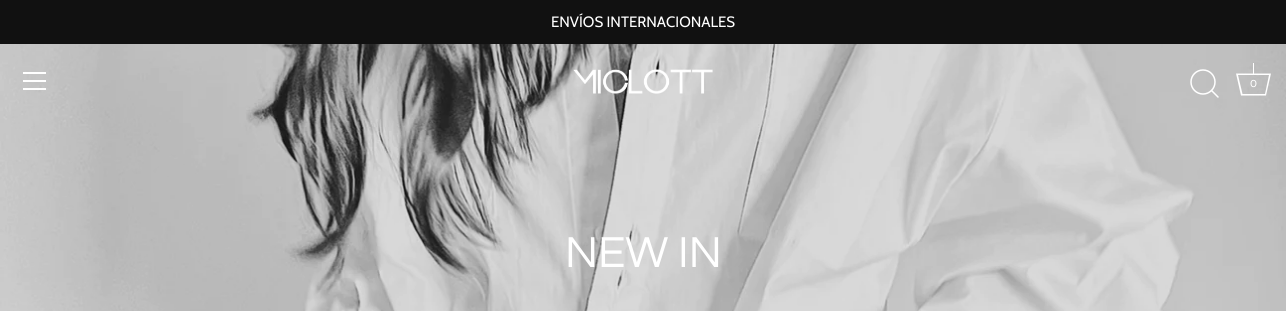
import math
import cairo

surface = cairo.ImageSurface(cairo.Format.RGB24, 1286, 311)
ctx = cairo.Context(surface)
options = cairo.FontOptions()
options.set_hint_metrics(cairo.HintMetrics.OFF)
options.set_hint_style(cairo.HintStyle.NONE)
ctx.set_font_options(options)
ctx.set_miter_limit(4)


def ink(r, g, b):
    ctx.set_source_rgb(r / 255, g / 255, b / 255)


def write(x, y, s, family, size, color, bold=False, italic=False):
    ctx.select_font_face(family, cairo.FontSlant.ITALIC if italic else cairo.FontSlant.NORMAL, cairo.FontWeight.BOLD if bold else cairo.FontWeight.NORMAL)
    ctx.set_font_size(size)
    ink(*color)
    ctx.move_to(x, y)
    ctx.show_text(s)


def block(x, y, w, h, *color):
    ink(*color)
    ctx.rectangle(x, y, w, h)
    ctx.fill()


def paste(path, x, y, w, h):
    ctx.save()
    ctx.set_source_surface(cairo.ImageSurface.create_from_png(path), x, y)
    ctx.rectangle(x, y, w, h)
    ctx.fill()
    ctx.restore()


s1 = dict(family="Cabin", size=15, color=(255, 255, 255))
s2 = dict(family="Cabin", size=10, color=(255, 255, 255))
s3 = dict(family="Questrial", size=45, color=(255, 255, 255))

ink(255, 255, 255)
ctx.paint()
block(0, 0, 1286, 44, 17, 17, 17)
write(551, 27, "ENVÍOS INTERNACIONALES", **s1)
paste("pic2.png", 0, 44, 1286, 267)
block(23, 72, 23, 2, 255, 255, 255)
block(23, 80, 23, 2, 255, 255, 255)
block(23, 88, 23, 2, 255, 255, 255)
paste("pic1.png", 573, 69, 140, 25)
ctx.arc(1203, 82, 12, 0, 2 * math.pi)
ctx.set_line_width(1.5)
ctx.stroke()
ctx.new_path()
ctx.move_to(1218, 97)
ctx.line_to(1211.5, 90.5)
ctx.set_line_cap(cairo.LineCap.ROUND)
ctx.set_line_join(cairo.LineJoin.ROUND)
ctx.stroke()
ctx.new_path()
ctx.move_to(1269, 75)
ctx.line_to(1265, 94)
ctx.line_to(1242.5, 94)
ctx.line_to(1238, 75)
ctx.line_to(1269, 75)
ctx.move_to(1271, 73.5)
ctx.line_to(1236, 73.5)
ctx.line_to(1241, 95.5)
ctx.line_to(1266, 95.5)
ctx.close_path()
ctx.fill()
block(1253, 63, 1, 11, 255, 255, 255)
write(1250, 87, "0", **s2)
write(565, 267, "NEW IN", **s3)
surface.write_to_png("screenshot.png")
